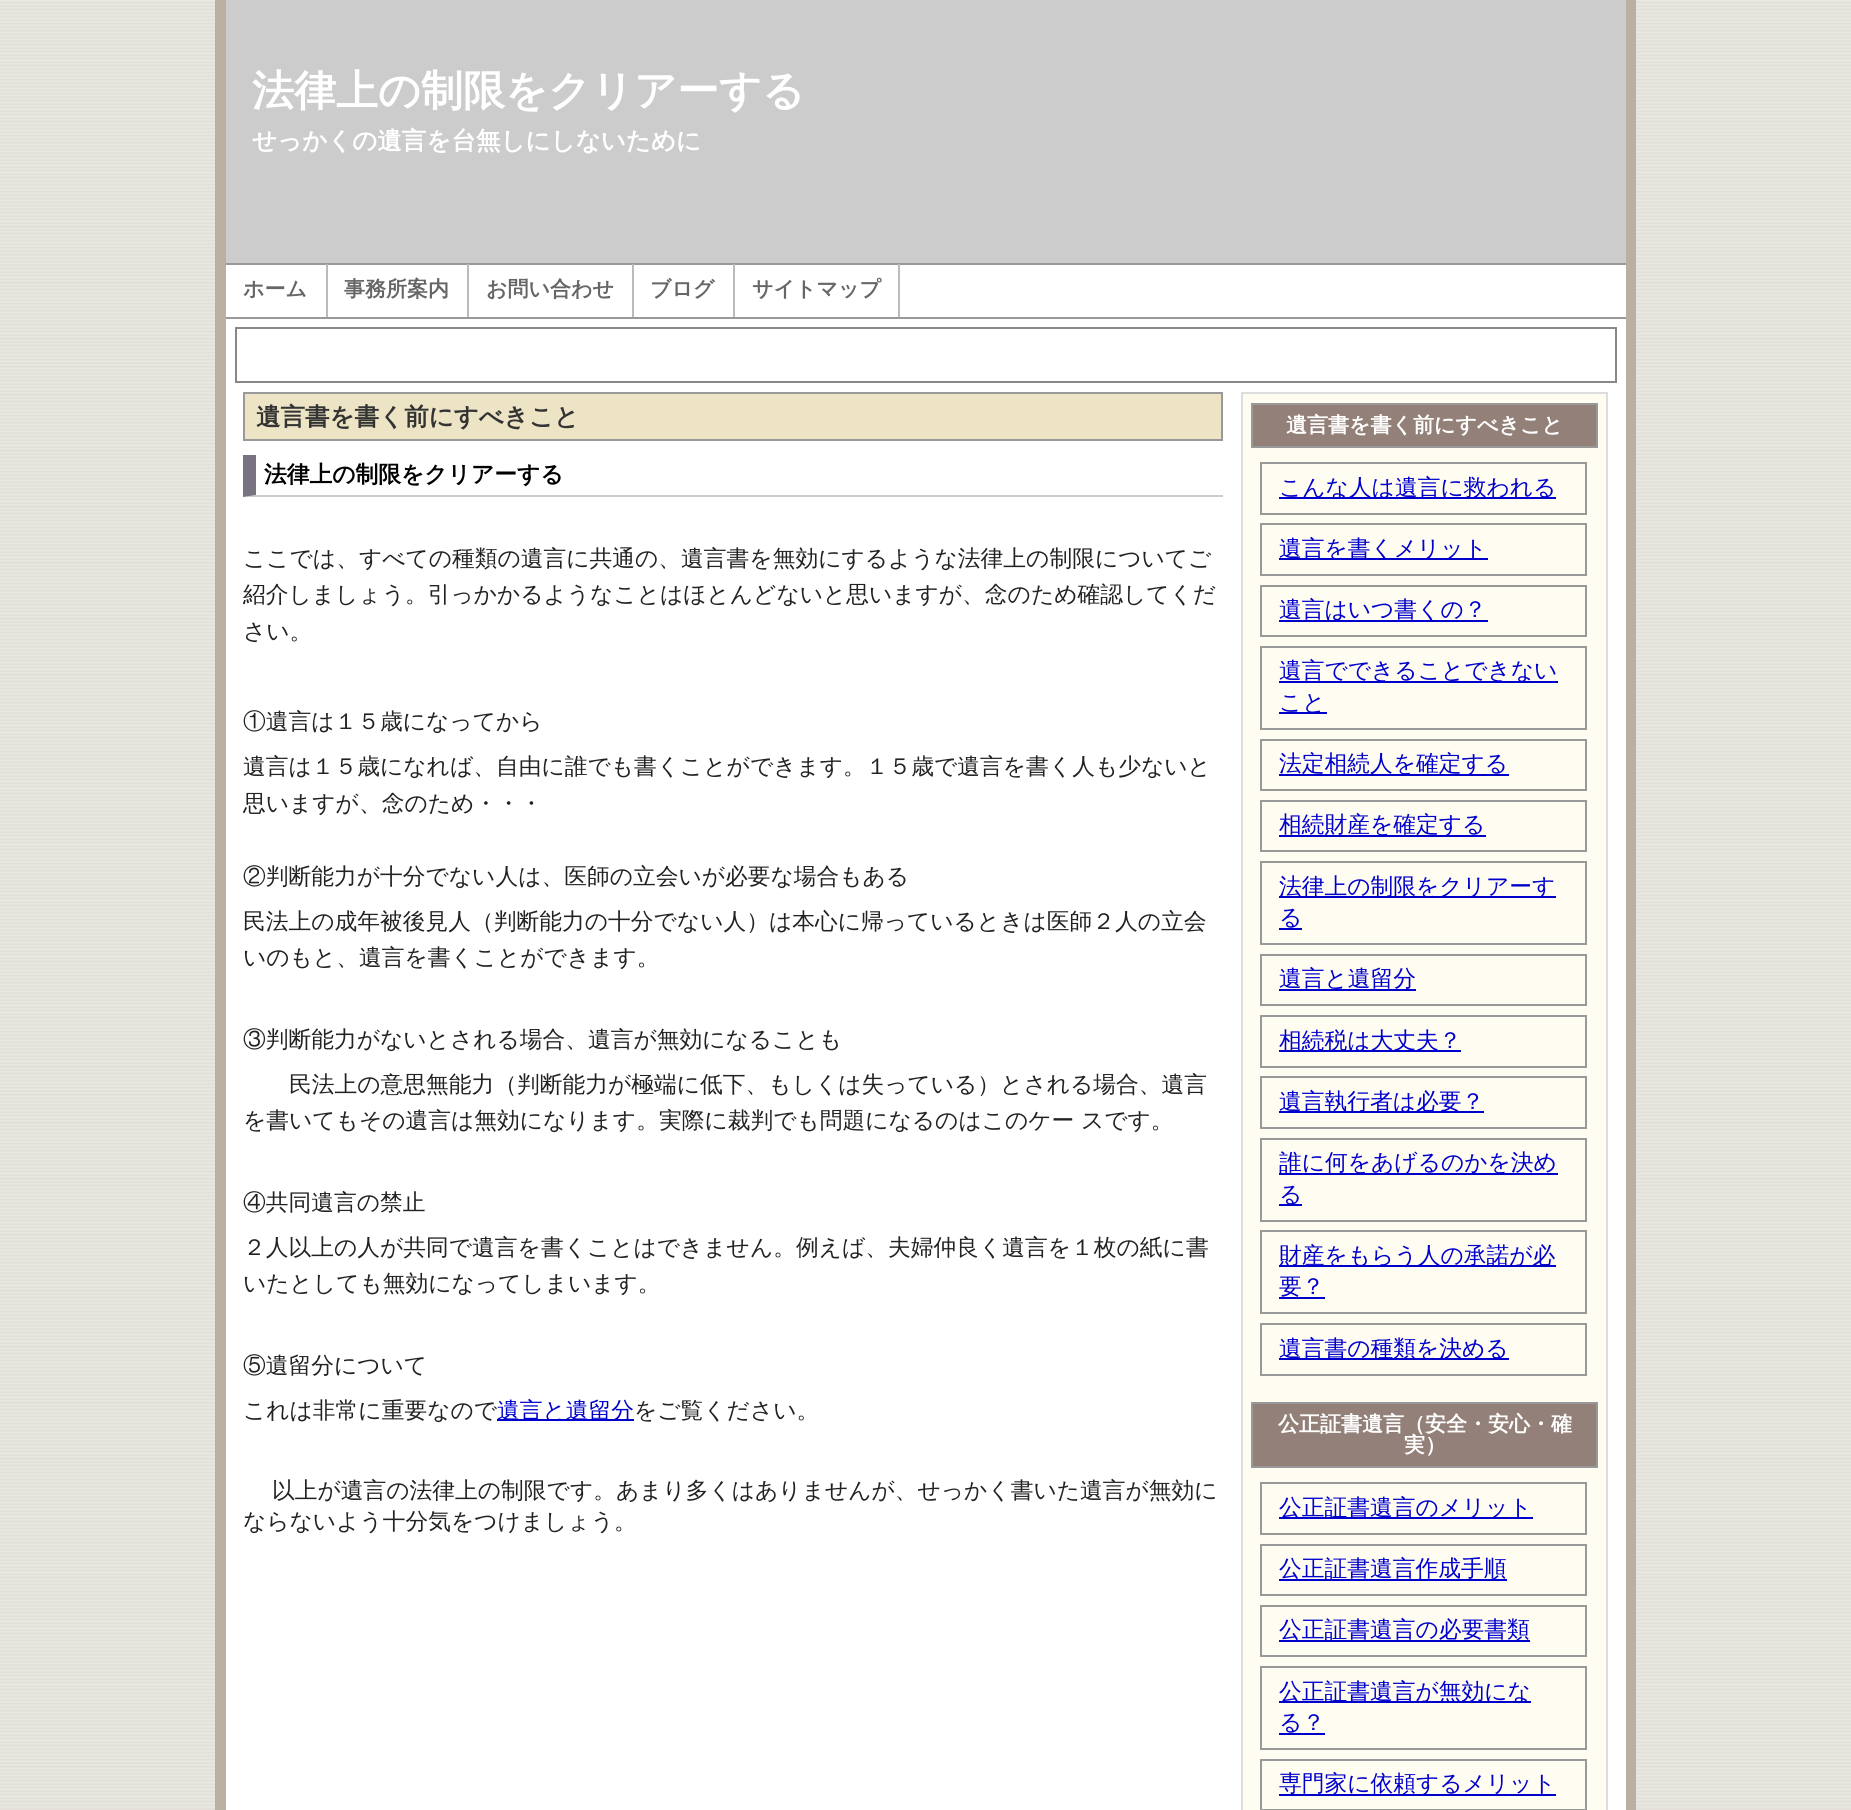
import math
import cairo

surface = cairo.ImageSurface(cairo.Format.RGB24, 1851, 1810)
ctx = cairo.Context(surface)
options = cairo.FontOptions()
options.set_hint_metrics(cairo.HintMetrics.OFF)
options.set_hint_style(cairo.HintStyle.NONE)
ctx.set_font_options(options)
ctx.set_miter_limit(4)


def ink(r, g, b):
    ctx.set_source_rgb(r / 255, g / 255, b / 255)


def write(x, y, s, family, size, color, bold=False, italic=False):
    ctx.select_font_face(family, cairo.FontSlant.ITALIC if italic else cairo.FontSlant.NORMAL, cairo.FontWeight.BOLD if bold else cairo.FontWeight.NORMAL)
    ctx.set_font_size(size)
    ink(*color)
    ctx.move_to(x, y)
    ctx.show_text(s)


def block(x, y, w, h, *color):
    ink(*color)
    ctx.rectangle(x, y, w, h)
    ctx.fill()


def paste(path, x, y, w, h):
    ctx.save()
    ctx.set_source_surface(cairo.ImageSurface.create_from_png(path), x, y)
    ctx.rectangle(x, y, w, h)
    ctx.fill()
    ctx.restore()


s1 = dict(family="WenQuanYi Zen Hei", size=42, color=(255, 255, 255), bold=True)
s2 = dict(family="WenQuanYi Zen Hei", size=24.5, color=(255, 255, 255), bold=True)
s3 = dict(family="WenQuanYi Zen Hei", size=21, color=(102, 102, 102), bold=True)
s4 = dict(family="WenQuanYi Zen Hei", size=24.5, color=(51, 51, 51), bold=True)
s5 = dict(family="WenQuanYi Zen Hei", size=22.75, color=(0, 0, 0), bold=True)
s6 = dict(family="WenQuanYi Zen Hei Medium", size=22.75, color=(34, 34, 34))
s7 = dict(family="WenQuanYi Zen Hei Medium", size=22.75, color=(0, 0, 204))
s8 = dict(family="WenQuanYi Zen Hei", size=21, color=(255, 255, 255), bold=True)

ink(235, 233, 228)
ctx.paint()
paste("pic1.png", 0, 1, 1851, 1809)
block(226, 265, 1400, 1545, 255, 255, 255)
block(1626, 0, 10, 1810, 185, 176, 162)
block(215, 0, 11, 1810, 185, 176, 162)
block(226, 0, 1400, 263, 204, 204, 204)
block(226, 263, 1400, 2, 153, 153, 153)
write(252, 105, "法律上の制限をクリアーする", **s1)
write(252, 149, "せっかくの遺言を台無しにしないために", **s2)
block(226, 317, 1400, 2, 153, 153, 153)
block(326, 264, 2, 53, 187, 187, 187)
write(243, 296, "ホーム", **s3)
block(467, 264, 2, 53, 187, 187, 187)
write(344, 296, "事務所案内", **s3)
block(632, 264, 2, 53, 187, 187, 187)
write(486, 296, "お問い合わせ", **s3)
block(733, 264, 2, 53, 187, 187, 187)
write(650, 296, "ブログ", **s3)
block(898, 264, 2, 53, 187, 187, 187)
write(752, 296, "サイトマップ", **s3)
ctx.rectangle(236, 328, 1380, 54)
ink(136, 136, 136)
ctx.stroke()
ink(237, 228, 197)
ctx.rectangle(244, 393, 978, 47)
ctx.fill_preserve()
ink(153, 153, 153)
ctx.stroke()
write(256, 425, "遺言書を書く前にすべきこと", **s4)
ink(204, 204, 204)
ctx.new_path()
ctx.move_to(1223, 497)
ctx.line_to(243, 497)
ctx.line_to(256, 495)
ctx.line_to(1223, 495)
ctx.close_path()
ctx.fill()
ink(121, 115, 129)
ctx.new_path()
ctx.move_to(243, 497)
ctx.line_to(243, 455)
ctx.line_to(256, 455)
ctx.line_to(256, 495)
ctx.close_path()
ctx.fill()
write(264, 482, "法律上の制限をクリアーする", **s5)
write(243, 566, "ここでは、すべての種類の遺言に共通の、遺言書を無効にするような法律上の制限についてご", **s6)
write(243, 602, "紹介しましょう。引っかかるようなことはほとんどないと思いますが、念のため確認してくだ", **s6)
write(243, 639, "さい。", **s6)
write(243, 729, "①遺言は１５歳になってから", **s6)
write(243, 774, "遺言は１５歳になれば、自由に誰でも書くことができます。１５歳で遺言を書く人も少ないと", **s6)
write(243, 811, "思いますが、念のため・・・", **s6)
write(243, 884, "②判断能力が十分でない人は、医師の立会いが必要な場合もある", **s6)
write(243, 929, "民法上の成年被後見人（判断能力の十分でない人）は本心に帰っているときは医師２人の立会", **s6)
write(243, 965, "いのもと、遺言を書くことができます。", **s6)
write(243, 1047, "③判断能力がないとされる場合、遺言が無効になることも", **s6)
write(289, 1092, "民法上の意思無能力（判断能力が極端に低下、もしくは失っている）とされる場合、遺言", **s6)
write(243, 1128, "を書いてもその遺言は無効になります。実際に裁判でも問題になるのはこのケー", **s6)
write(1081, 1128, "スです。", **s6)
write(243, 1210, "④共同遺言の禁止", **s6)
write(243, 1255, "２人以上の人が共同で遺言を書くことはできません。例えば、夫婦仲良く遺言を１枚の紙に書", **s6)
write(243, 1291, "いたとしても無効になってしまいます。", **s6)
write(243, 1373, "⑤遺留分について", **s6)
write(243, 1418, "これは非常に重要なので", **s6)
block(497, 1419, 137, 2, 0, 0, 204)
write(497, 1418, "遺言と遺留分", **s7)
write(634, 1418, "をご覧ください。", **s6)
write(272, 1498, "以上が遺言の法律上の制限です。あまり多くはありませんが、せっかく書いた遺言が無効に", **s6)
write(243, 1529, "ならないよう十分気をつけましょう。", **s6)
ink(255, 252, 241)
ctx.rectangle(1242, 393, 365, 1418)
ctx.fill_preserve()
ink(221, 221, 221)
ctx.stroke()
ink(147, 128, 120)
ctx.rectangle(1252, 404, 345, 43)
ctx.fill_preserve()
ink(153, 153, 153)
ctx.stroke()
write(1286, 432, "遺言書を書く前にすべきこと", **s8)
ctx.rectangle(1261, 463, 325, 51)
ink(153, 153, 153)
ctx.stroke()
block(1279, 497, 277, 2, 0, 0, 204)
write(1279, 495, "こんな人は遺言に救われる", **s7)
ctx.rectangle(1261, 524, 325, 51)
ink(153, 153, 153)
ctx.stroke()
block(1279, 558, 209, 2, 0, 0, 204)
write(1279, 556, "遺言を書くメリット", **s7)
ctx.rectangle(1261, 586, 325, 50)
ink(153, 153, 153)
ctx.stroke()
block(1279, 620, 209, 2, 0, 0, 204)
write(1279, 617, "遺言はいつ書くの？", **s7)
ctx.rectangle(1261, 647, 325, 82)
ink(153, 153, 153)
ctx.stroke()
block(1279, 681, 279, 2, 0, 0, 204)
write(1279, 678, "遺言でできることできない", **s7)
block(1279, 712, 48, 2, 0, 0, 204)
write(1279, 710, "こと", **s7)
ctx.rectangle(1261, 740, 325, 50)
ink(153, 153, 153)
ctx.stroke()
block(1279, 774, 230, 2, 0, 0, 204)
write(1279, 771, "法定相続人を確定する", **s7)
ctx.rectangle(1261, 801, 325, 50)
ink(153, 153, 153)
ctx.stroke()
block(1279, 835, 207, 2, 0, 0, 204)
write(1279, 832, "相続財産を確定する", **s7)
ctx.rectangle(1261, 862, 325, 82)
ink(153, 153, 153)
ctx.stroke()
block(1279, 896, 277, 2, 0, 0, 204)
write(1279, 894, "法律上の制限をクリアーす", **s7)
write(1279, 925, "る", **s7)
block(1279, 928, 23, 2, 0, 0, 204)
ctx.rectangle(1261, 955, 325, 50)
ink(153, 153, 153)
ctx.stroke()
write(1279, 986, "遺言と遺留分", **s7)
block(1279, 989, 137, 2, 0, 0, 204)
ctx.rectangle(1261, 1016, 325, 51)
ink(153, 153, 153)
ctx.stroke()
block(1279, 1050, 182, 2, 0, 0, 204)
write(1279, 1048, "相続税は大丈夫？", **s7)
ctx.rectangle(1261, 1077, 325, 51)
ink(153, 153, 153)
ctx.stroke()
block(1279, 1111, 205, 2, 0, 0, 204)
write(1279, 1109, "遺言執行者は必要？", **s7)
ctx.rectangle(1261, 1139, 325, 82)
ink(153, 153, 153)
ctx.stroke()
block(1279, 1173, 279, 2, 0, 0, 204)
write(1279, 1170, "誰に何をあげるのかを決め", **s7)
block(1279, 1204, 23, 2, 0, 0, 204)
write(1279, 1202, "る", **s7)
ctx.rectangle(1261, 1231, 325, 82)
ink(153, 153, 153)
ctx.stroke()
block(1279, 1265, 277, 2, 0, 0, 204)
write(1279, 1263, "財産をもらう人の承諾が必", **s7)
write(1279, 1294, "要？", **s7)
block(1279, 1297, 46, 2, 0, 0, 204)
ctx.rectangle(1261, 1324, 325, 51)
ink(153, 153, 153)
ctx.stroke()
block(1279, 1358, 230, 2, 0, 0, 204)
write(1279, 1356, "遺言書の種類を決める", **s7)
ink(147, 128, 120)
ctx.rectangle(1252, 1403, 345, 64)
ctx.fill_preserve()
ink(153, 153, 153)
ctx.stroke()
write(1278, 1431, "公正証書遺言（安全・安心・確", **s8)
write(1404, 1452, "実）", **s8)
ctx.rectangle(1261, 1483, 325, 51)
ink(153, 153, 153)
ctx.stroke()
block(1279, 1517, 254, 2, 0, 0, 204)
write(1279, 1515, "公正証書遺言のメリット", **s7)
ctx.rectangle(1261, 1545, 325, 50)
ink(153, 153, 153)
ctx.stroke()
block(1279, 1579, 228, 2, 0, 0, 204)
write(1279, 1576, "公正証書遺言作成手順", **s7)
ctx.rectangle(1261, 1606, 325, 50)
ink(153, 153, 153)
ctx.stroke()
block(1279, 1640, 251, 2, 0, 0, 204)
write(1279, 1637, "公正証書遺言の必要書類", **s7)
ctx.rectangle(1261, 1667, 325, 82)
ink(153, 153, 153)
ctx.stroke()
block(1279, 1701, 252, 2, 0, 0, 204)
write(1279, 1699, "公正証書遺言が無効にな", **s7)
write(1279, 1730, "る？", **s7)
block(1279, 1733, 46, 2, 0, 0, 204)
ctx.rectangle(1261, 1760, 325, 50)
ink(153, 153, 153)
ctx.stroke()
block(1279, 1794, 277, 2, 0, 0, 204)
write(1279, 1791, "専門家に依頼するメリット", **s7)
surface.write_to_png("screenshot.png")
